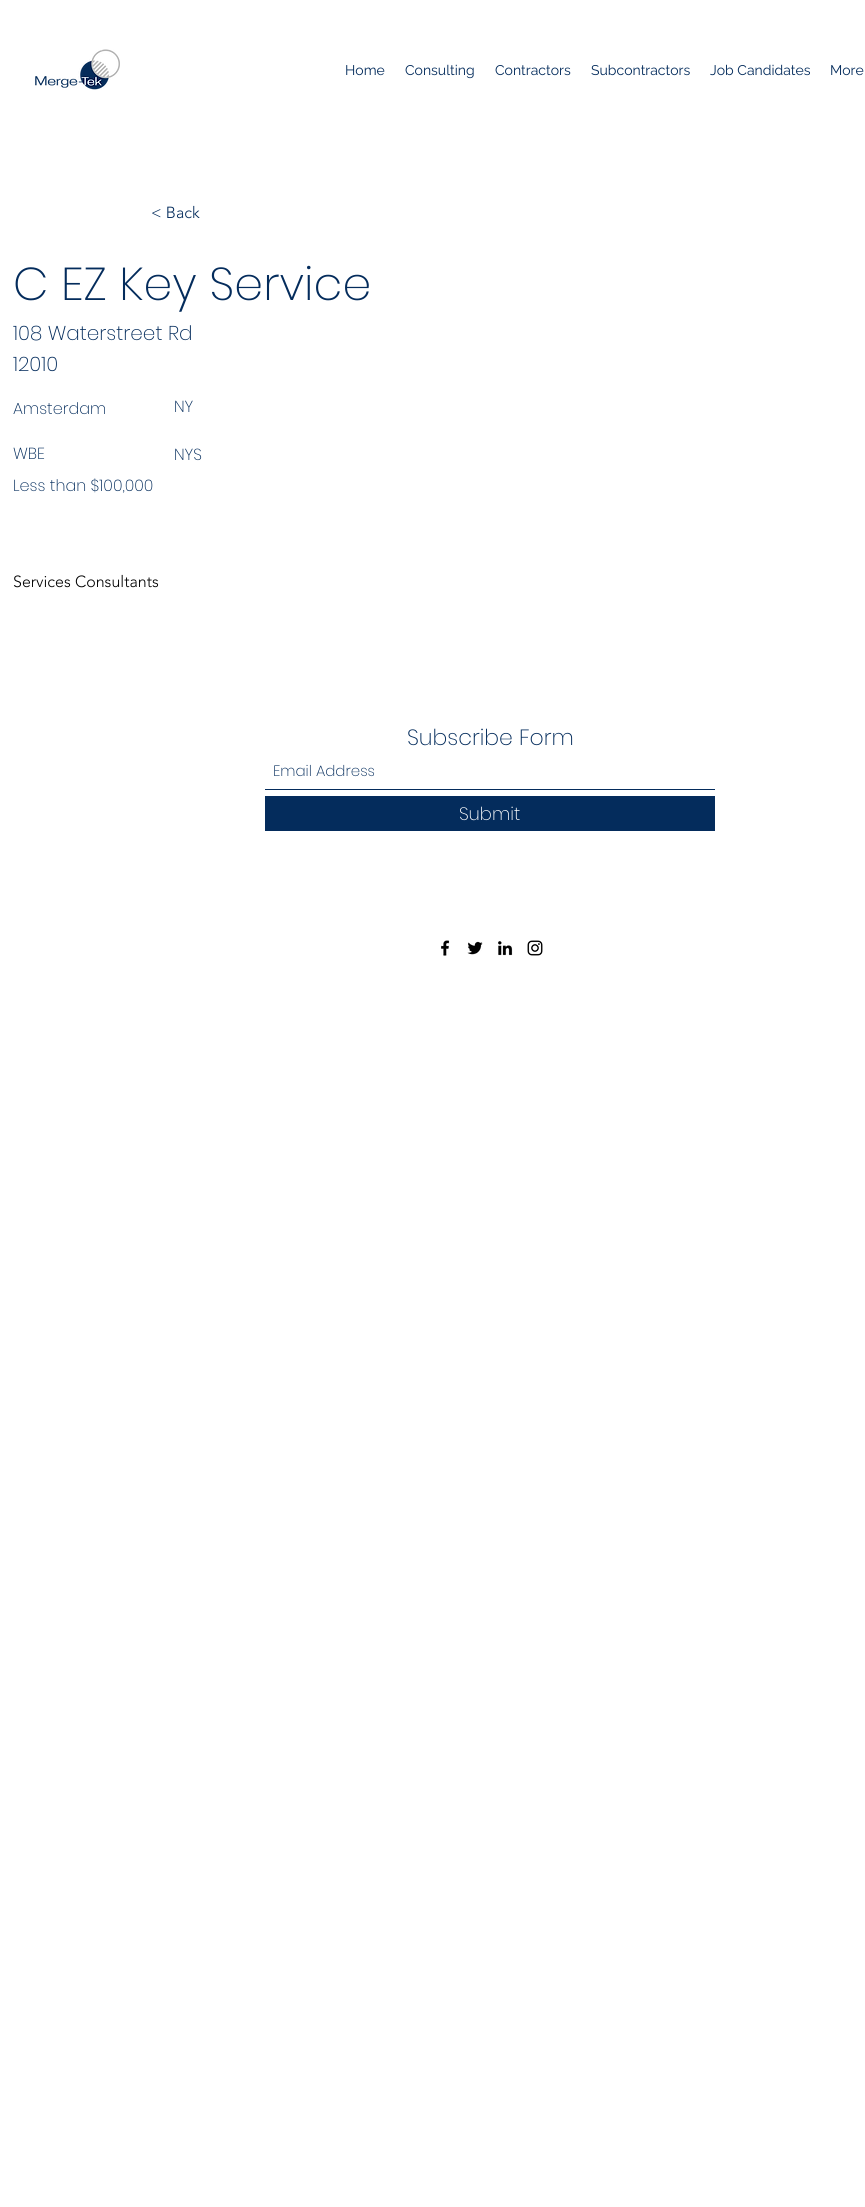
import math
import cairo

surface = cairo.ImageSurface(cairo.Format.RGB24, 865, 2207)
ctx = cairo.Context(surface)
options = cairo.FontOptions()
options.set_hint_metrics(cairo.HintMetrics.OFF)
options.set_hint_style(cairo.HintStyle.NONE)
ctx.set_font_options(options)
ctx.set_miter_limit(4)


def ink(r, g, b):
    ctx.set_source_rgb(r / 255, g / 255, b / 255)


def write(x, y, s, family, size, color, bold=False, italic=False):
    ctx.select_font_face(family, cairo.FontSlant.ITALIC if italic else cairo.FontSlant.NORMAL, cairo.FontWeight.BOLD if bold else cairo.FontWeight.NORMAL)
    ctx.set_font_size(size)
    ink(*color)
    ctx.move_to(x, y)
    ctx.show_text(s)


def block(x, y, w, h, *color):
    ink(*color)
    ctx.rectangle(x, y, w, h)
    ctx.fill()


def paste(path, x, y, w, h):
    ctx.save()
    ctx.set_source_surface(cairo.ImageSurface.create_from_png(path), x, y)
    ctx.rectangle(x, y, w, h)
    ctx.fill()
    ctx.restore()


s1 = dict(family="Raleway", size=14, color=(4, 44, 92))
s2 = dict(family="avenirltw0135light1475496 Light", size=16, color=(4, 44, 92))
s3 = dict(family="Poppins ExtraLight", size=46, color=(4, 44, 92))
s4 = dict(family="Poppins ExtraLight", size=20, color=(4, 44, 92))
s5 = dict(family="Poppins ExtraLight", size=16, color=(4, 44, 92))
s6 = dict(family="avenirltw0135light1475496 Light", size=16, color=(0, 0, 0))
s7 = dict(family="Poppins ExtraLight", size=22, color=(4, 44, 92))
s8 = dict(family="Poppins ExtraLight", size=15, color=(4, 44, 92))
s9 = dict(family="Poppins ExtraLight", size=18, color=(255, 255, 255))

ink(255, 255, 255)
ctx.paint()
paste("pic1.png", 35, 49, 85, 41)
write(345, 75, "Home", **s1)
write(405, 75, "Consulting", **s1)
write(495, 75, "Contractors", **s1)
write(591, 75, "Subcontractors", **s1)
write(710, 75, "Job Candidates", **s1)
write(830, 75, "More", **s1)
write(151, 218, "< Back", **s2)
write(13, 300, "C EZ Key Service", **s3)
write(13, 371, "12010", **s4)
write(13, 414, "Amsterdam", **s5)
write(174, 412, "NY", **s5)
write(13, 459, "WBE", **s5)
write(174, 460, "NYS", **s5)
write(13, 491, "Less than $100,000", **s5)
write(13, 587, "Services Consultants", **s6)
write(13, 340, "108 Waterstreet Rd", **s4)
write(407, 745, "Subscribe Form", **s7)
block(265, 789, 450, 1, 4, 44, 92)
write(273, 776, "Email Address", **s8)
block(265, 796, 450, 35, 4, 44, 92)
write(459, 820, "Submit", **s9)
paste("pic2.png", 441, 940, 9, 16)
paste("pic3.png", 467, 941, 16, 14)
paste("pic4.png", 498, 941, 15, 15)
paste("pic5.png", 527, 940, 16, 16)
surface.write_to_png("screenshot.png")
